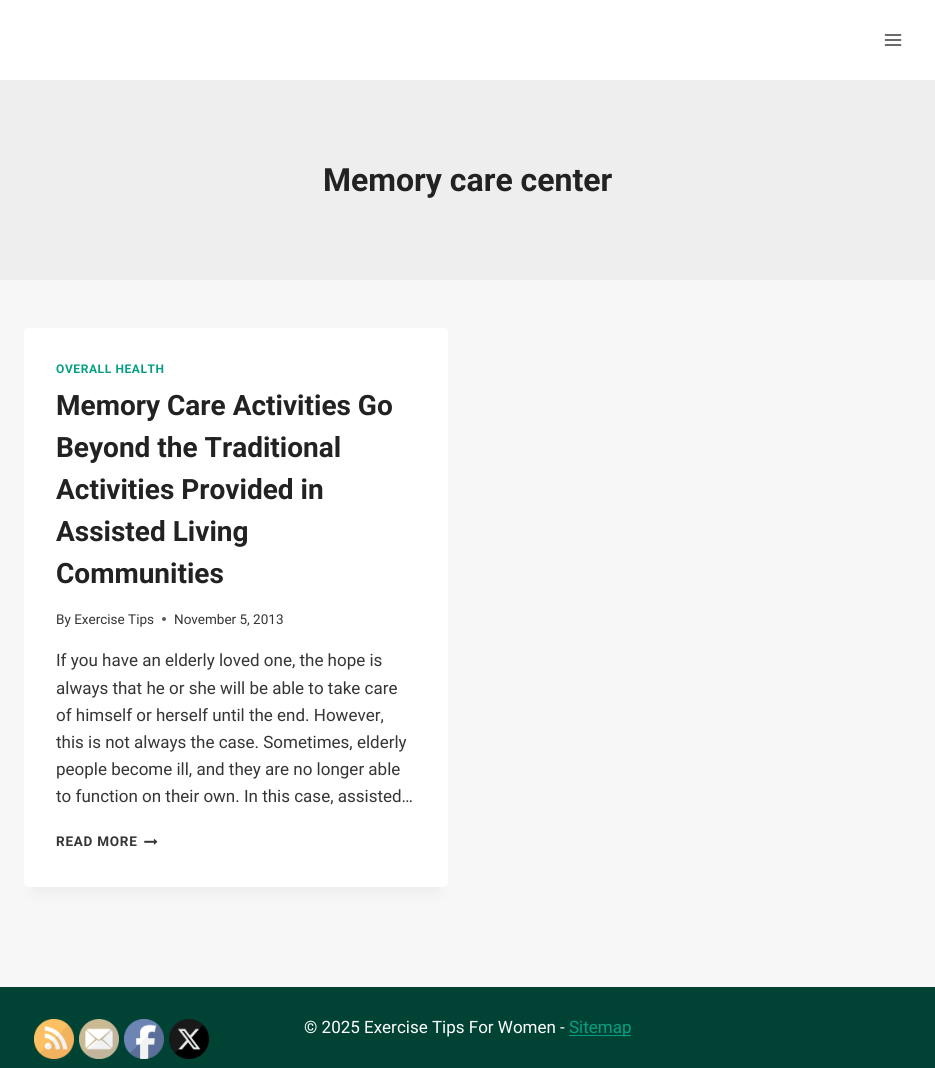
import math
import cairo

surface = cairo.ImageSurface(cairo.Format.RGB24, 935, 1068)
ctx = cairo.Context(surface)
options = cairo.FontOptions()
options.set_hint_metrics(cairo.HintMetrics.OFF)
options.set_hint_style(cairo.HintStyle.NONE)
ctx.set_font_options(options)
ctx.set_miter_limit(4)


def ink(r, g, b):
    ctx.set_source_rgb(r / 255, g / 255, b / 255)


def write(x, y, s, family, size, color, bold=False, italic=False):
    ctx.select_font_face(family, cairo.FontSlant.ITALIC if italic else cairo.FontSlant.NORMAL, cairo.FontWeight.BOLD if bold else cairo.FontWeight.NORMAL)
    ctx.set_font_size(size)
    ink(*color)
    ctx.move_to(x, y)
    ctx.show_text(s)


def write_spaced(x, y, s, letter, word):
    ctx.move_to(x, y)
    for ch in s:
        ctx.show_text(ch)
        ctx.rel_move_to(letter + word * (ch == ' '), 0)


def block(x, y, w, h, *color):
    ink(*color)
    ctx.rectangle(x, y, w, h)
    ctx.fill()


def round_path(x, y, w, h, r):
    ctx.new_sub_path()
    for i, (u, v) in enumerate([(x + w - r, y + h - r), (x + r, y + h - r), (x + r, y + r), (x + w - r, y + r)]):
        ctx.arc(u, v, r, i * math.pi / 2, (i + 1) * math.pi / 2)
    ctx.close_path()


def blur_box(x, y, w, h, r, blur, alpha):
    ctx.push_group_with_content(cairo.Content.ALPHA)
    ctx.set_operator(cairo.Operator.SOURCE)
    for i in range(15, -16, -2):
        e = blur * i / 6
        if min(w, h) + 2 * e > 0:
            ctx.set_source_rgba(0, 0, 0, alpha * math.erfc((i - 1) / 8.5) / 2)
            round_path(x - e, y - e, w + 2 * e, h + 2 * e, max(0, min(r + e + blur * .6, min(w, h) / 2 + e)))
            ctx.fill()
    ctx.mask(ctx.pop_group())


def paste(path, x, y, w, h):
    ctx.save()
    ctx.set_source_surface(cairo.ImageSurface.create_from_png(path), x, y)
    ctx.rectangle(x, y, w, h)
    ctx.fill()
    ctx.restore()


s1 = dict(family="Roboto", size=32, color=(34, 34, 34), bold=True)
s2 = dict(family="Roboto", size=28, color=(34, 34, 34), bold=True)
s3 = dict(family="Roboto", size=13.5, color=(53, 53, 53))
s4 = dict(family="Roboto", size=17, color=(53, 53, 53))
s5 = dict(family="Roboto", size=17, color=(255, 255, 255))
s6 = dict(family="Roboto", size=17, color=(4, 159, 130))

ink(247, 247, 247)
ctx.paint()
block(0, 0, 935, 80, 255, 255, 255)
paste("pic1.png", 884, 34, 18, 12)
block(0, 80, 935, 200, 238, 238, 238)
write(323, 191, "Memory care center", **s1)
ink(0, 0, 0)
blur_box(34, 353, 404, 539, 0, 7.5, 0.05)
ink(255, 255, 255)
round_path(24, 328, 424, 559, 4)
ctx.fill()
ctx.set_font_size(12)
ink(4, 159, 130)
write_spaced(56, 373, "OVERALL HEALTH", 0.6, 0)
write(56, 415, "Memory Care Activities Go", **s2)
write(56, 457, "Beyond the Traditional", **s2)
write(56, 499, "Activities Provided in", **s2)
write(56, 541, "Assisted Living", **s2)
write(56, 583, "Communities", **s2)
write(56, 624, "By Exercise Tips", **s3)
ink(93, 93, 93)
ctx.new_path()
ctx.arc(164, 619, 2, 0, 2 * math.pi)
ctx.fill()
write(174, 624, "November 5, 2013", **s3)
write(56, 666, "If you have an elderly loved one, the hope is", **s4)
write(56, 694, "always that he or she will be able to take care", **s4)
write(56, 721, "of himself or herself until the end. However,", **s4)
write(56, 748, "this is not always the case. Sometimes, elderly", **s4)
write(56, 775, "people become ill, and they are no longer able", **s4)
write(56, 802, "to function on their own. In this case, assisted…", **s4)
ctx.select_font_face("Roboto", cairo.FontSlant.NORMAL, cairo.FontWeight.BOLD)
ctx.set_font_size(13.5)
write_spaced(56, 846, "READ MORE", 0.75, 0)
paste("pic2.png", 144, 838, 14, 7)
block(0, 987, 935, 81, 0, 67, 53)
write(304, 1033, "© 2025 Exercise Tips For Women -", **s5)
block(569, 1035, 62, 1, 4, 159, 130)
write(569, 1033, "Sitemap", **s6)
paste("pic3.png", 34, 1019, 40, 40)
paste("pic4.png", 79, 1019, 40, 40)
paste("pic5.png", 124, 1019, 40, 40)
paste("pic6.png", 169, 1019, 40, 40)
surface.write_to_png("screenshot.png")
